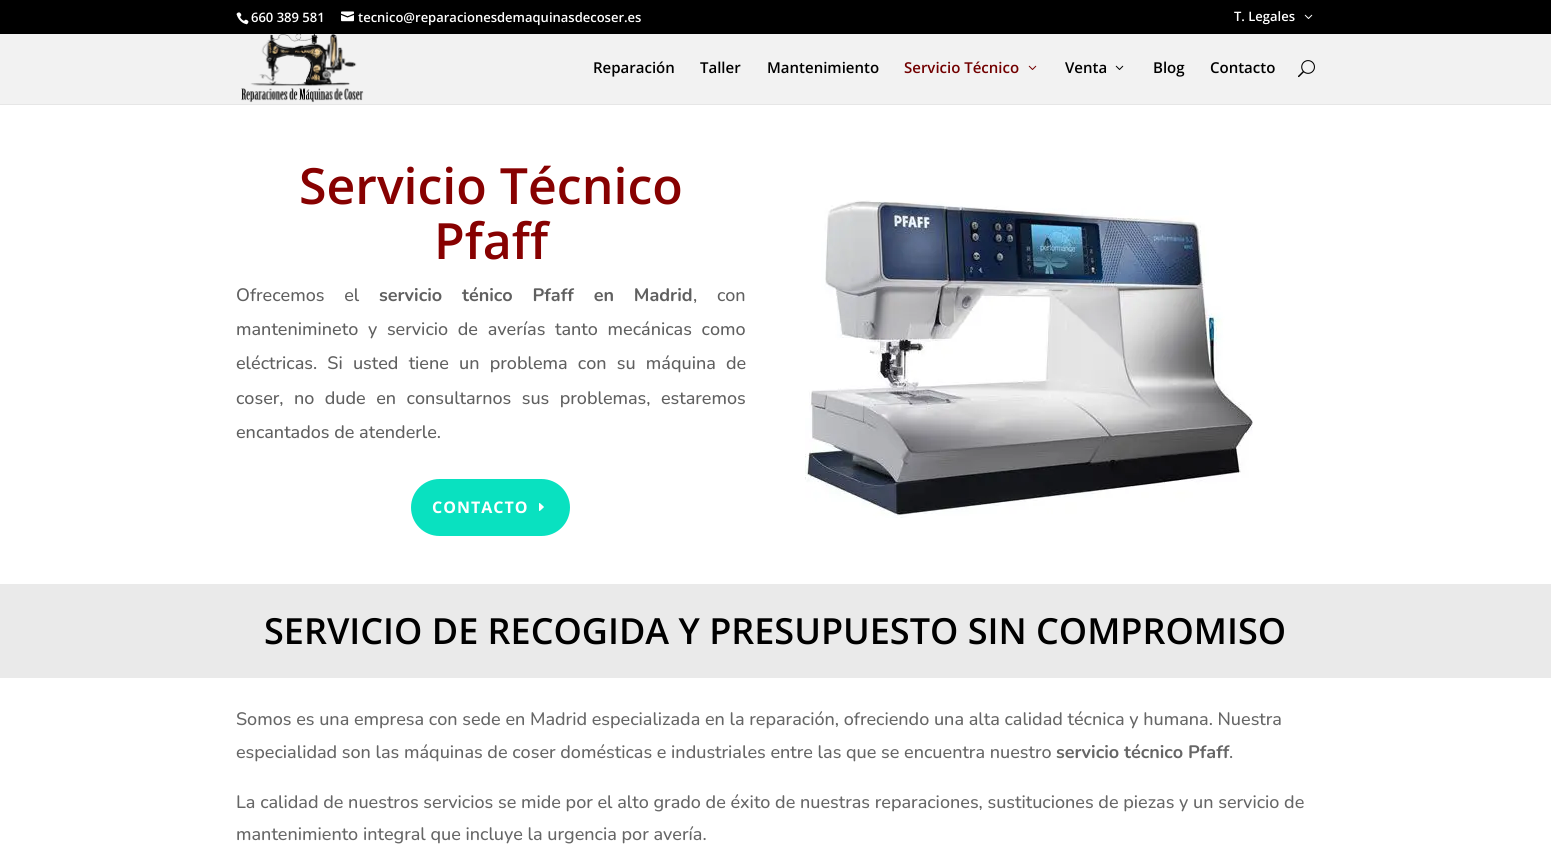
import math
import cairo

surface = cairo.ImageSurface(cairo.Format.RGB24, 1551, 845)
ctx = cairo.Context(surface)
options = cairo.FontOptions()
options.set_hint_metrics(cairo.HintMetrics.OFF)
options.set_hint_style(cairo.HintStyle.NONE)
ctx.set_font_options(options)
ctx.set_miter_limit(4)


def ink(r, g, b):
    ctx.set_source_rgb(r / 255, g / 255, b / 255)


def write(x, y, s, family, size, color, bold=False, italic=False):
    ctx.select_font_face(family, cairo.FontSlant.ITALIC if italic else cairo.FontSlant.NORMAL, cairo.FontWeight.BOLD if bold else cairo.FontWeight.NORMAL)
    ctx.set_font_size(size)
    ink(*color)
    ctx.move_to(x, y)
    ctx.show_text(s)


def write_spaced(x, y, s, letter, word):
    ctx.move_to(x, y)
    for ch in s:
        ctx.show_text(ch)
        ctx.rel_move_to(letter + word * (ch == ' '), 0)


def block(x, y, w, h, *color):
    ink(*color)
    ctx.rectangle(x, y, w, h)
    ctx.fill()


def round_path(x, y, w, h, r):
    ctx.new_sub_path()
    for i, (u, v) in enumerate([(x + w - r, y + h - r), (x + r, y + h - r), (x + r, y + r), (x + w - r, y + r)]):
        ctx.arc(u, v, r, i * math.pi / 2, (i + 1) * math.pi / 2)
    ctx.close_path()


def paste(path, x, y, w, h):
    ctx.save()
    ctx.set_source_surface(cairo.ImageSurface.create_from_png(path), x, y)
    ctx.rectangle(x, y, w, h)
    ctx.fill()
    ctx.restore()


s1 = dict(family="Open Sans SemiBold", size=13, color=(255, 255, 255))
s2 = dict(family="Open Sans SemiBold", size=15, color=(0, 0, 0))
s3 = dict(family="Open Sans SemiBold", size=15, color=(114, 0, 0))
s4 = dict(family="Open Sans SemiBold", size=50, color=(135, 1, 1))
s5 = dict(family="Nunito Medium", size=18, color=(96, 96, 96))
s6 = dict(family="Open Sans SemiBold", size=36, color=(0, 0, 0))
s7 = dict(family="Nunito Medium", size=18, color=(102, 102, 102))
s8 = dict(family="Nunito", size=18, color=(102, 102, 102), bold=True)

ink(255, 255, 255)
ctx.paint()
block(0, 0, 1551, 34, 0, 0, 0)
paste("pic1.png", 236, 12, 13, 13)
write(251, 22, "660 389 581", **s1)
paste("pic2.png", 341, 11, 13, 11)
write(358, 22, "tecnico@reparacionesdemaquinasdecoser.es", **s1)
write(1234, 21, "T. Legales", **s1)
paste("pic3.png", 1304, 14, 9, 5)
block(0, 104, 1551, 1, 230, 230, 230)
block(0, 34, 1551, 70, 242, 242, 242)
paste("pic4.png", 241, 34, 123, 69)
write(593, 73, "Reparación", **s2)
write(700, 73, "Taller", **s2)
write(767, 73, "Mantenimiento", **s2)
write(904, 73, "Servicio Técnico", **s3)
paste("pic5.png", 1028, 65, 9, 5)
write(1065, 73, "Venta", **s2)
paste("pic6.png", 1115, 65, 9, 5)
write(1153, 73, "Blog", **s2)
write(1210, 73, "Contacto", **s2)
paste("pic7.png", 1298, 60, 17, 18)
write(299, 204, "Servicio Técnico", **s4)
write(434, 259, "Pfaff", **s4)
ctx.select_font_face("Nunito Medium")
ctx.set_font_size(18)
ink(96, 96, 96)
write_spaced(236, 301, "Ofrecemos el", 0, 15)
ctx.select_font_face("Nunito", cairo.FontSlant.NORMAL, cairo.FontWeight.BOLD)
write_spaced(379, 301, "servicio ténico Pfaff en Madrid", 0, 15)
ctx.select_font_face("Nunito Medium")
write_spaced(693, 301, ", con", 0, 15)
write_spaced(236, 335, "mantenimineto y servicio de averías tanto mecánicas como", 0, 5)
write_spaced(236, 369, "eléctricas. Si usted tiene un problema con su máquina de", 0, 5.5)
write_spaced(236, 404, "coser, no dude en consultarnos sus problemas, estaremos", 0, 5.75)
write(236, 438, "encantados de atenderle.", **s5)
ink(9, 225, 192)
round_path(416, 484, 149, 47, 23.5)
ctx.fill_preserve()
ctx.set_line_width(10)
ctx.stroke()
ctx.select_font_face("Open Sans", cairo.FontSlant.NORMAL, cairo.FontWeight.BOLD)
ctx.set_font_size(16)
ink(255, 255, 255)
write_spaced(432, 513, "CONTACTO", 1, 0)
paste("pic8.png", 539, 503, 5, 8)
paste("pic9.png", 805, 200, 448, 318)
block(0, 584, 1551, 94, 234, 234, 234)
write(264, 644, "SERVICIO DE RECOGIDA Y PRESUPUESTO SIN COMPROMISO", **s6)
write(236, 725, "Somos es una empresa con sede en Madrid especializada en la reparación, ofreciendo una alta calidad técnica y humana. Nuestra", **s7)
write(236, 758, "especialidad son las máquinas de coser domésticas e industriales entre las que se encuentra nuestro", **s7)
write(1056, 758, "servicio técnico Pfaff", **s8)
write(1229, 758, ".", **s7)
write(236, 808, "La calidad de nuestros servicios se mide por el alto grado de éxito de nuestras reparaciones, sustituciones de piezas y un servicio de", **s7)
write(236, 840, "mantenimiento integral que incluye la urgencia por avería.", **s7)
surface.write_to_png("screenshot.png")
